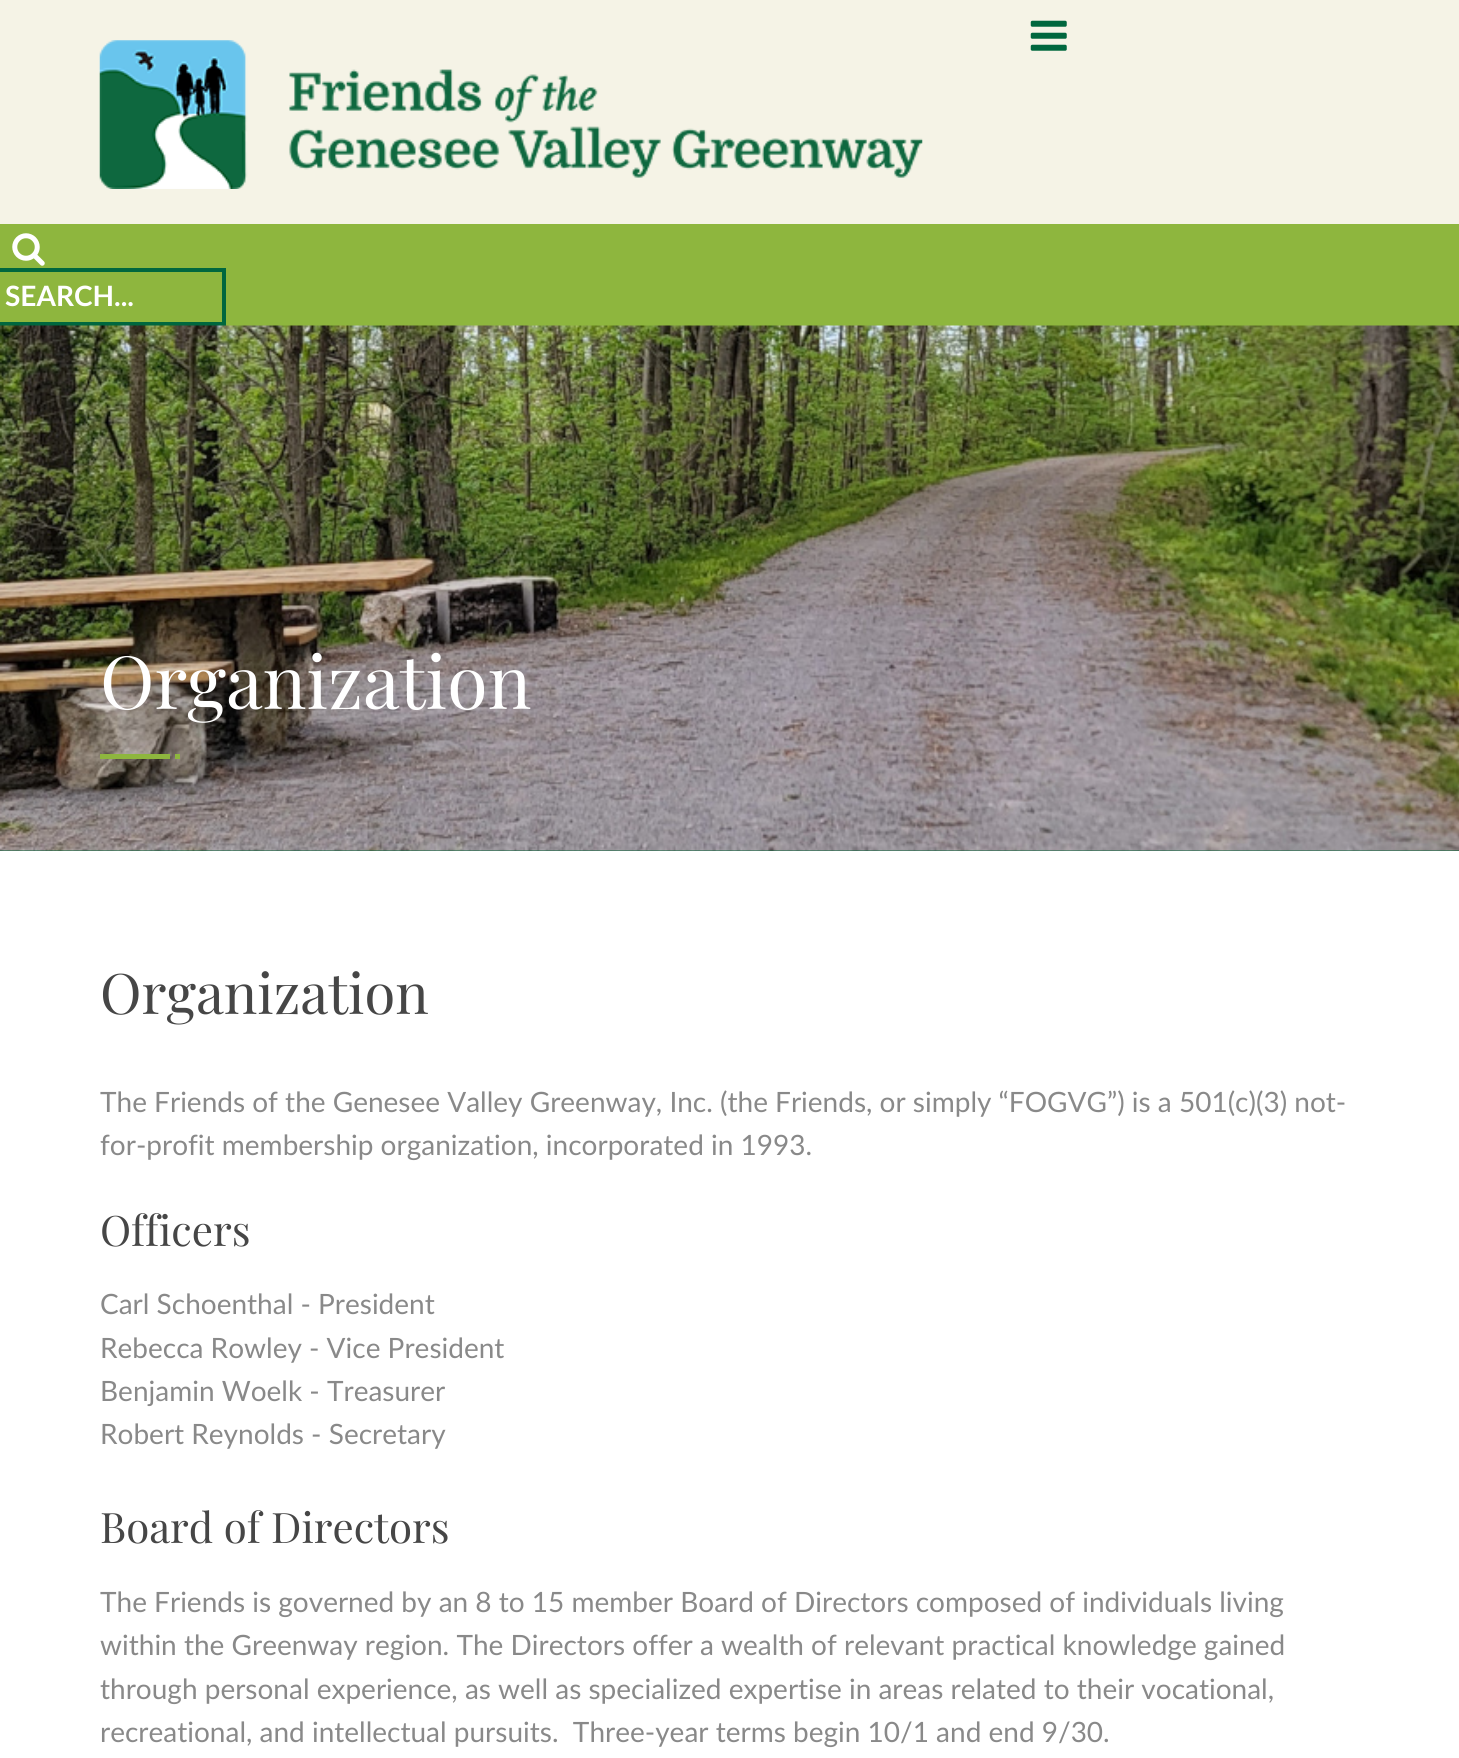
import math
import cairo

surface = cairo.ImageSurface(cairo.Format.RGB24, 1459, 1758)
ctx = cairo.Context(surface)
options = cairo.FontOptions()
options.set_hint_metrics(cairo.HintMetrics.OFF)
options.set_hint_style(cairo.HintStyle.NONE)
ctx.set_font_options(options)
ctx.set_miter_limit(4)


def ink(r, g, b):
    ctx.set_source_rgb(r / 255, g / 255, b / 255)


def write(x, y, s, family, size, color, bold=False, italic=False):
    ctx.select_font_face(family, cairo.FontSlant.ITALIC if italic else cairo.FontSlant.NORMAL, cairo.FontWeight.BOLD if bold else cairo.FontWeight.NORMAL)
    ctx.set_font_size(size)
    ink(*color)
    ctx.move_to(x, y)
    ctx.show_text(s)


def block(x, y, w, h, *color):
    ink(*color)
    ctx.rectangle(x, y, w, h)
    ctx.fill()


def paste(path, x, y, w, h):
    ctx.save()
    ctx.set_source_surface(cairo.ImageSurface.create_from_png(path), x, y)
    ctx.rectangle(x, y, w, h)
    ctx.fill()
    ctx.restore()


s1 = dict(family="Lato", size=28, color=(255, 255, 255), bold=True)
s2 = dict(family="Playfair Display", size=73.5, color=(255, 255, 255))
s3 = dict(family="Playfair Display", size=56, color=(70, 70, 70))
s4 = dict(family="Lato", size=28, color=(137, 137, 137))
s5 = dict(family="Playfair Display", size=42, color=(70, 70, 70))

ink(255, 255, 255)
ctx.paint()
block(0, 0, 1459, 224, 245, 243, 230)
paste("pic1.png", 1030, 20, 37, 31)
paste("pic2.png", 99, 40, 824, 149)
block(0, 224, 1459, 102, 142, 182, 62)
paste("pic3.png", 12, 233, 33, 33)
ctx.rectangle(-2, 270, 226, 54)
ink(0, 103, 62)
ctx.set_line_width(4)
ctx.stroke()
write(5, 306, "SEARCH...", **s1)
block(0, 850, 1459, 1, 14, 104, 63)
paste("pic4.png", 0, 325, 1459, 526)
write(100, 709, "Organization", **s2)
block(100, 754, 70, 5, 142, 182, 62)
block(175, 754, 5, 5, 142, 182, 62)
write(100, 1014, "Organization", **s3)
write(100, 1112, "The Friends of the Genesee Valley Greenway, Inc. (the Friends, or simply “FOGVG”) is a 501(c)(3) not-", **s4)
write(100, 1155, "for-profit membership organization, incorporated in 1993.", **s4)
write(100, 1246, "Officers", **s5)
write(100, 1314, "Carl Schoenthal - President", **s4)
write(100, 1358, "Rebecca Rowley - Vice President", **s4)
write(100, 1401, "Benjamin Woelk - Treasurer", **s4)
write(100, 1444, "Robert Reynolds - Secretary", **s4)
write(100, 1543, "Board of Directors", **s5)
write(100, 1612, "The Friends is governed by an 8 to 15 member Board of Directors composed of individuals living", **s4)
write(100, 1655, "within the Greenway region. The Directors offer a wealth of relevant practical knowledge gained", **s4)
write(100, 1699, "through personal experience, as well as specialized expertise in areas related to their vocational,", **s4)
write(100, 1742, "recreational, and intellectual pursuits.  Three-year terms begin 10/1 and end 9/30.", **s4)
surface.write_to_png("screenshot.png")
